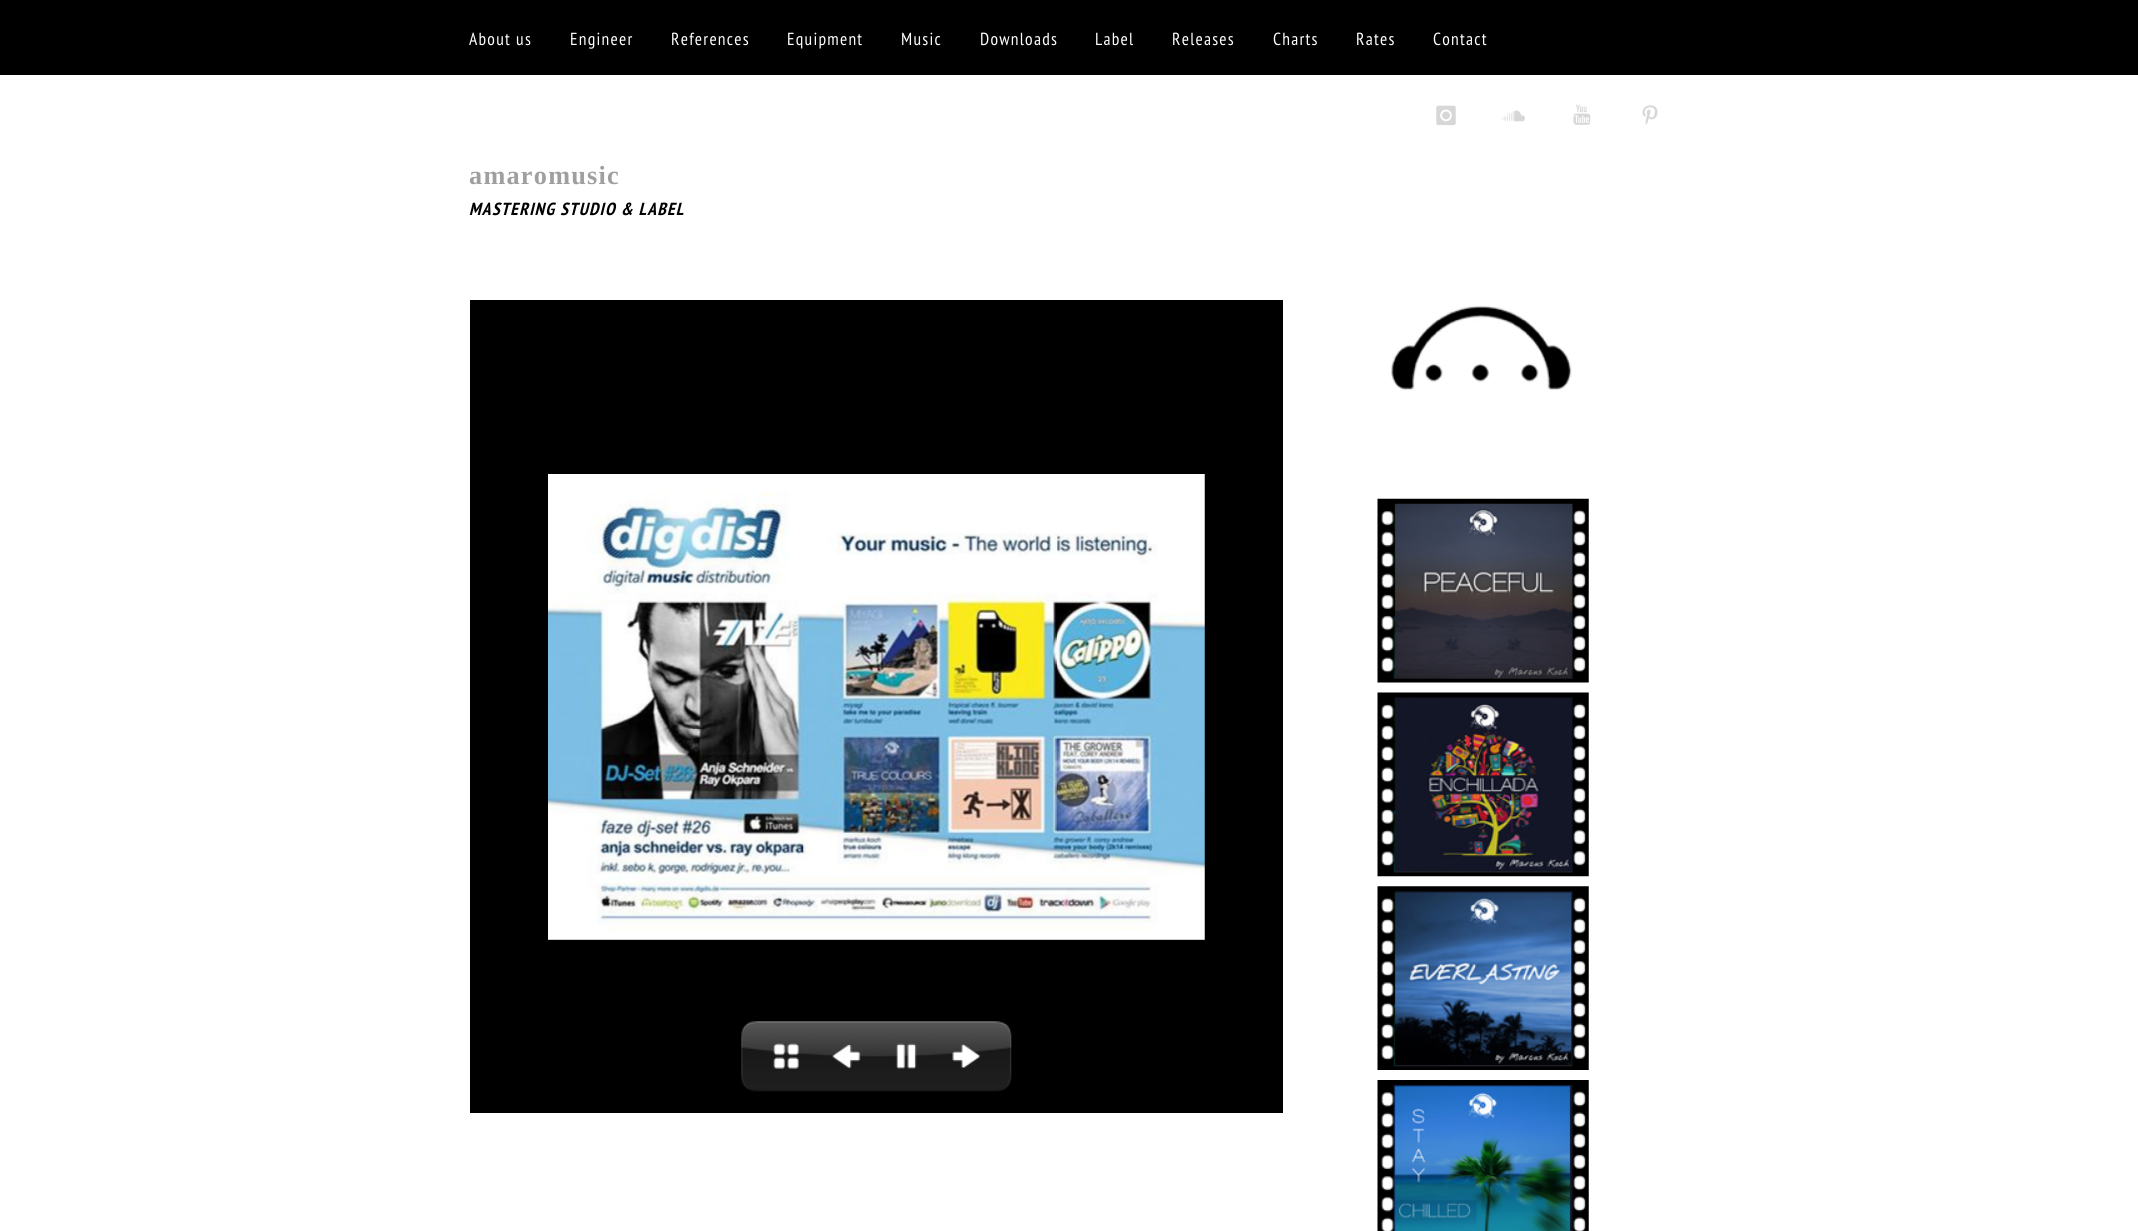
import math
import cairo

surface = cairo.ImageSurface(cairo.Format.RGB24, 2138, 1231)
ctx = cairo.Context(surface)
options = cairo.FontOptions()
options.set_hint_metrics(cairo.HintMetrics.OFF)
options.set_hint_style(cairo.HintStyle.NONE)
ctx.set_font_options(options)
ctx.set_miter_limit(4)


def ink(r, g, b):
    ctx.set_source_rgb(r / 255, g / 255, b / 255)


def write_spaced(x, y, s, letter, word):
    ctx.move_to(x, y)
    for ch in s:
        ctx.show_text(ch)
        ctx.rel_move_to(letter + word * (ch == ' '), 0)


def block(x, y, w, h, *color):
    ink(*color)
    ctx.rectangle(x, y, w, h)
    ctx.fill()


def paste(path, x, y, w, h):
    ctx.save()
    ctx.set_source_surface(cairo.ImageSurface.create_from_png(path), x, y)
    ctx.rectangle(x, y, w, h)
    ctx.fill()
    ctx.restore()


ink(255, 255, 255)
ctx.paint()
block(0, 0, 2138, 75, 0, 0, 0)
ctx.select_font_face("PT Sans Narrow")
ctx.set_font_size(17.5)
ink(255, 255, 255)
write_spaced(469, 45, "About us", 1.25, 0)
write_spaced(570, 45, "Engineer", 1.25, 0)
write_spaced(671, 45, "References", 1.25, 0)
write_spaced(787, 45, "Equipment", 1.25, 0)
write_spaced(901, 45, "Music", 1.25, 0)
write_spaced(980, 45, "Downloads", 1.25, 0)
write_spaced(1095, 45, "Label", 1.25, 0)
write_spaced(1172, 45, "Releases", 1.25, 0)
write_spaced(1273, 45, "Charts", 1.25, 0)
write_spaced(1356, 45, "Rates", 1.25, 0)
write_spaced(1433, 45, "Contact", 1.25, 0)
paste("pic1.png", 1436, 105, 20, 21)
paste("pic2.png", 1502, 110, 23, 12)
paste("pic3.png", 1573, 104, 18, 21)
paste("pic4.png", 1642, 105, 16, 20)
ctx.select_font_face("Liberation Serif", cairo.FontSlant.NORMAL, cairo.FontWeight.BOLD)
ctx.set_font_size(26.25)
ink(159, 159, 159)
write_spaced(469, 184, "amaromusic", 1.25, 0)
ctx.select_font_face("PT Sans Narrow", cairo.FontSlant.ITALIC, cairo.FontWeight.BOLD)
ctx.set_font_size(17.5)
ink(0, 0, 0)
write_spaced(469, 215, "MASTERING STUDIO & LABEL", 1.25, 0)
block(470, 300, 813, 813, 0, 0, 0)
paste("pic5.png", 548, 474, 657, 466)
paste("pic6.png", 741, 1021, 271, 71)
paste("pic7.png", 773, 1043, 26, 26)
paste("pic8.png", 832, 1044, 29, 25)
paste("pic9.png", 896, 1043, 21, 26)
paste("pic10.png", 952, 1043, 29, 25)
paste("pic11.png", 1391, 306, 181, 85)
paste("pic12.png", 1377, 498, 212, 185)
paste("pic13.png", 1377, 692, 212, 185)
paste("pic14.png", 1377, 886, 212, 184)
paste("pic15.png", 1377, 1080, 212, 151)
surface.write_to_png("screenshot.png")
